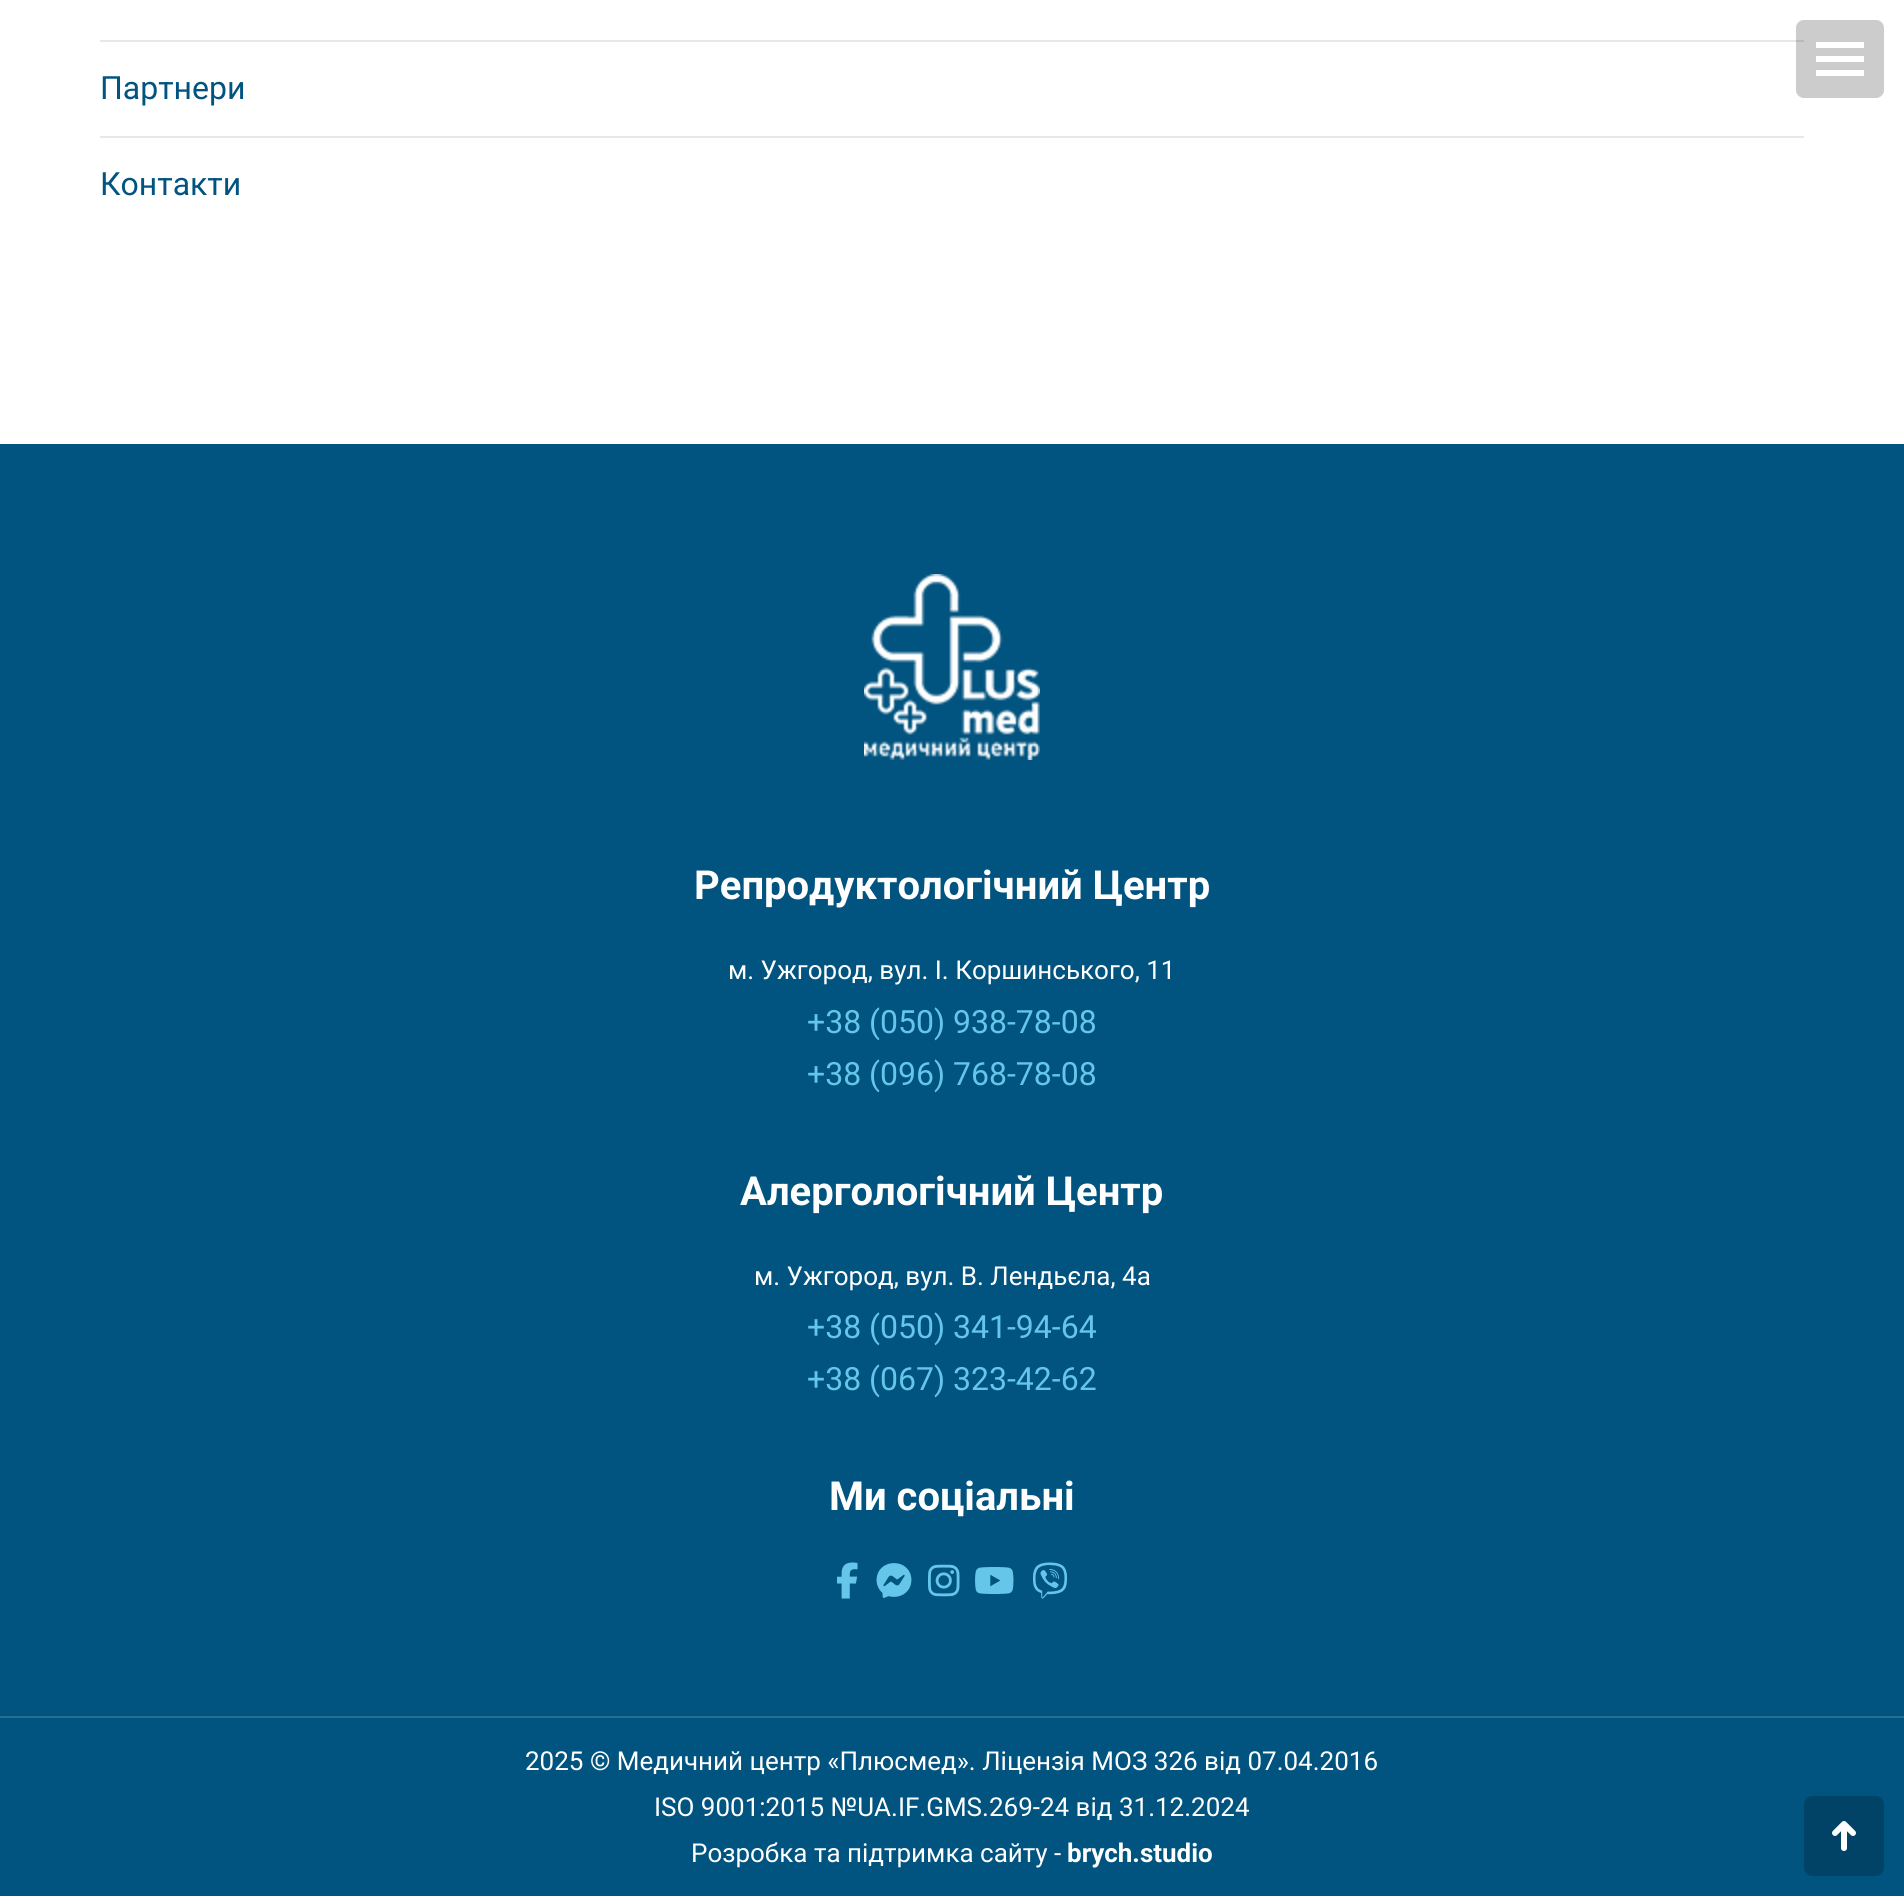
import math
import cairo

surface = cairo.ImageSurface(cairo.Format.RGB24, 1904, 1896)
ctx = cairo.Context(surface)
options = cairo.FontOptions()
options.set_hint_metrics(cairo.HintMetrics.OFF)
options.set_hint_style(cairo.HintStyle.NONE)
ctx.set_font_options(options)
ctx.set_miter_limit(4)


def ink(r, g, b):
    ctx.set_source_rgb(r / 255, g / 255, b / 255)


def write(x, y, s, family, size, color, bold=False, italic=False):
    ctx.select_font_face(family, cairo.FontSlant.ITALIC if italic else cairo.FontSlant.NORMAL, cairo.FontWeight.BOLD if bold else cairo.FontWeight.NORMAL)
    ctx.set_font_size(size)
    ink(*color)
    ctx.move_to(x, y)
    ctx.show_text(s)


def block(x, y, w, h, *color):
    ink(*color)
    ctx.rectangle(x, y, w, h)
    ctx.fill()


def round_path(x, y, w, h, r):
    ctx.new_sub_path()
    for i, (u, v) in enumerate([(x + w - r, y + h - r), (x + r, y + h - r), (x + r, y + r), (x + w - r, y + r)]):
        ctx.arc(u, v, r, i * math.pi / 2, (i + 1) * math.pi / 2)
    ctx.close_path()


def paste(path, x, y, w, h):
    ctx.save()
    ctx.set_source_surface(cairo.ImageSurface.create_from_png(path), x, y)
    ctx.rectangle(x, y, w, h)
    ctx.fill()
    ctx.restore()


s1 = dict(family="Roboto", size=32, color=(1, 84, 128))
s2 = dict(family="Roboto", size=40, color=(255, 255, 255), bold=True)
s3 = dict(family="Roboto", size=26, color=(255, 255, 255))
s4 = dict(family="Roboto", size=32, color=(101, 198, 234))
s5 = dict(family="Roboto", size=26, color=(255, 255, 255), bold=True)

ink(255, 255, 255)
ctx.paint()
block(100, 40, 1704, 2, 231, 231, 231)
ctx.set_source_rgba(0, 0, 0, 0.2)
round_path(1796, 20, 88, 78, 8)
ctx.fill()
block(1816, 42, 48, 6, 255, 255, 255)
block(1816, 56, 48, 6, 255, 255, 255)
block(1816, 70, 48, 6, 255, 255, 255)
write(100, 99, "Партнери", **s1)
block(100, 136, 1704, 2, 231, 231, 231)
write(100, 195, "Контакти", **s1)
block(0, 444, 1904, 1452, 1, 84, 128)
paste("pic1.png", 864, 574, 176, 186)
write(694, 899, "Репродуктологічний Центр", **s2)
write(728, 979, "м. Ужгород, вул. І. Коршинського, 11", **s3)
write(807, 1033, "+38 (050) 938-78-08", **s4)
write(807, 1085, "+38 (096) 768-78-08", **s4)
write(740, 1205, "Алергологічний Центр", **s2)
write(754, 1285, "м. Ужгород, вул. В. Лендьєла, 4а", **s3)
write(807, 1338, "+38 (050) 341-94-64", **s4)
write(807, 1390, "+38 (067) 323-42-62", **s4)
write(829, 1510, "Ми соціальні", **s2)
paste("pic2.png", 837, 1562, 21, 37)
paste("pic3.png", 876, 1563, 36, 35)
paste("pic4.png", 928, 1564, 32, 33)
paste("pic5.png", 975, 1567, 39, 27)
paste("pic6.png", 1033, 1562, 35, 37)
block(0, 1716, 1904, 2, 39, 110, 147)
write(525, 1770, "2025 © Медичний центр «Плюсмед». Ліцензія МОЗ 326 від 07.04.2016", **s3)
write(654, 1816, "ISO 9001:2015 №UA.IF.GMS.269-24 від 31.12.2024", **s3)
write(691, 1862, "Розробка та підтримка сайту -", **s3)
write(1067, 1862, "brych.studio", **s5)
ink(1, 67, 102)
round_path(1804, 1796, 80, 80, 8)
ctx.fill()
paste("pic7.png", 1832, 1821, 24, 30)
surface.write_to_png("screenshot.png")
